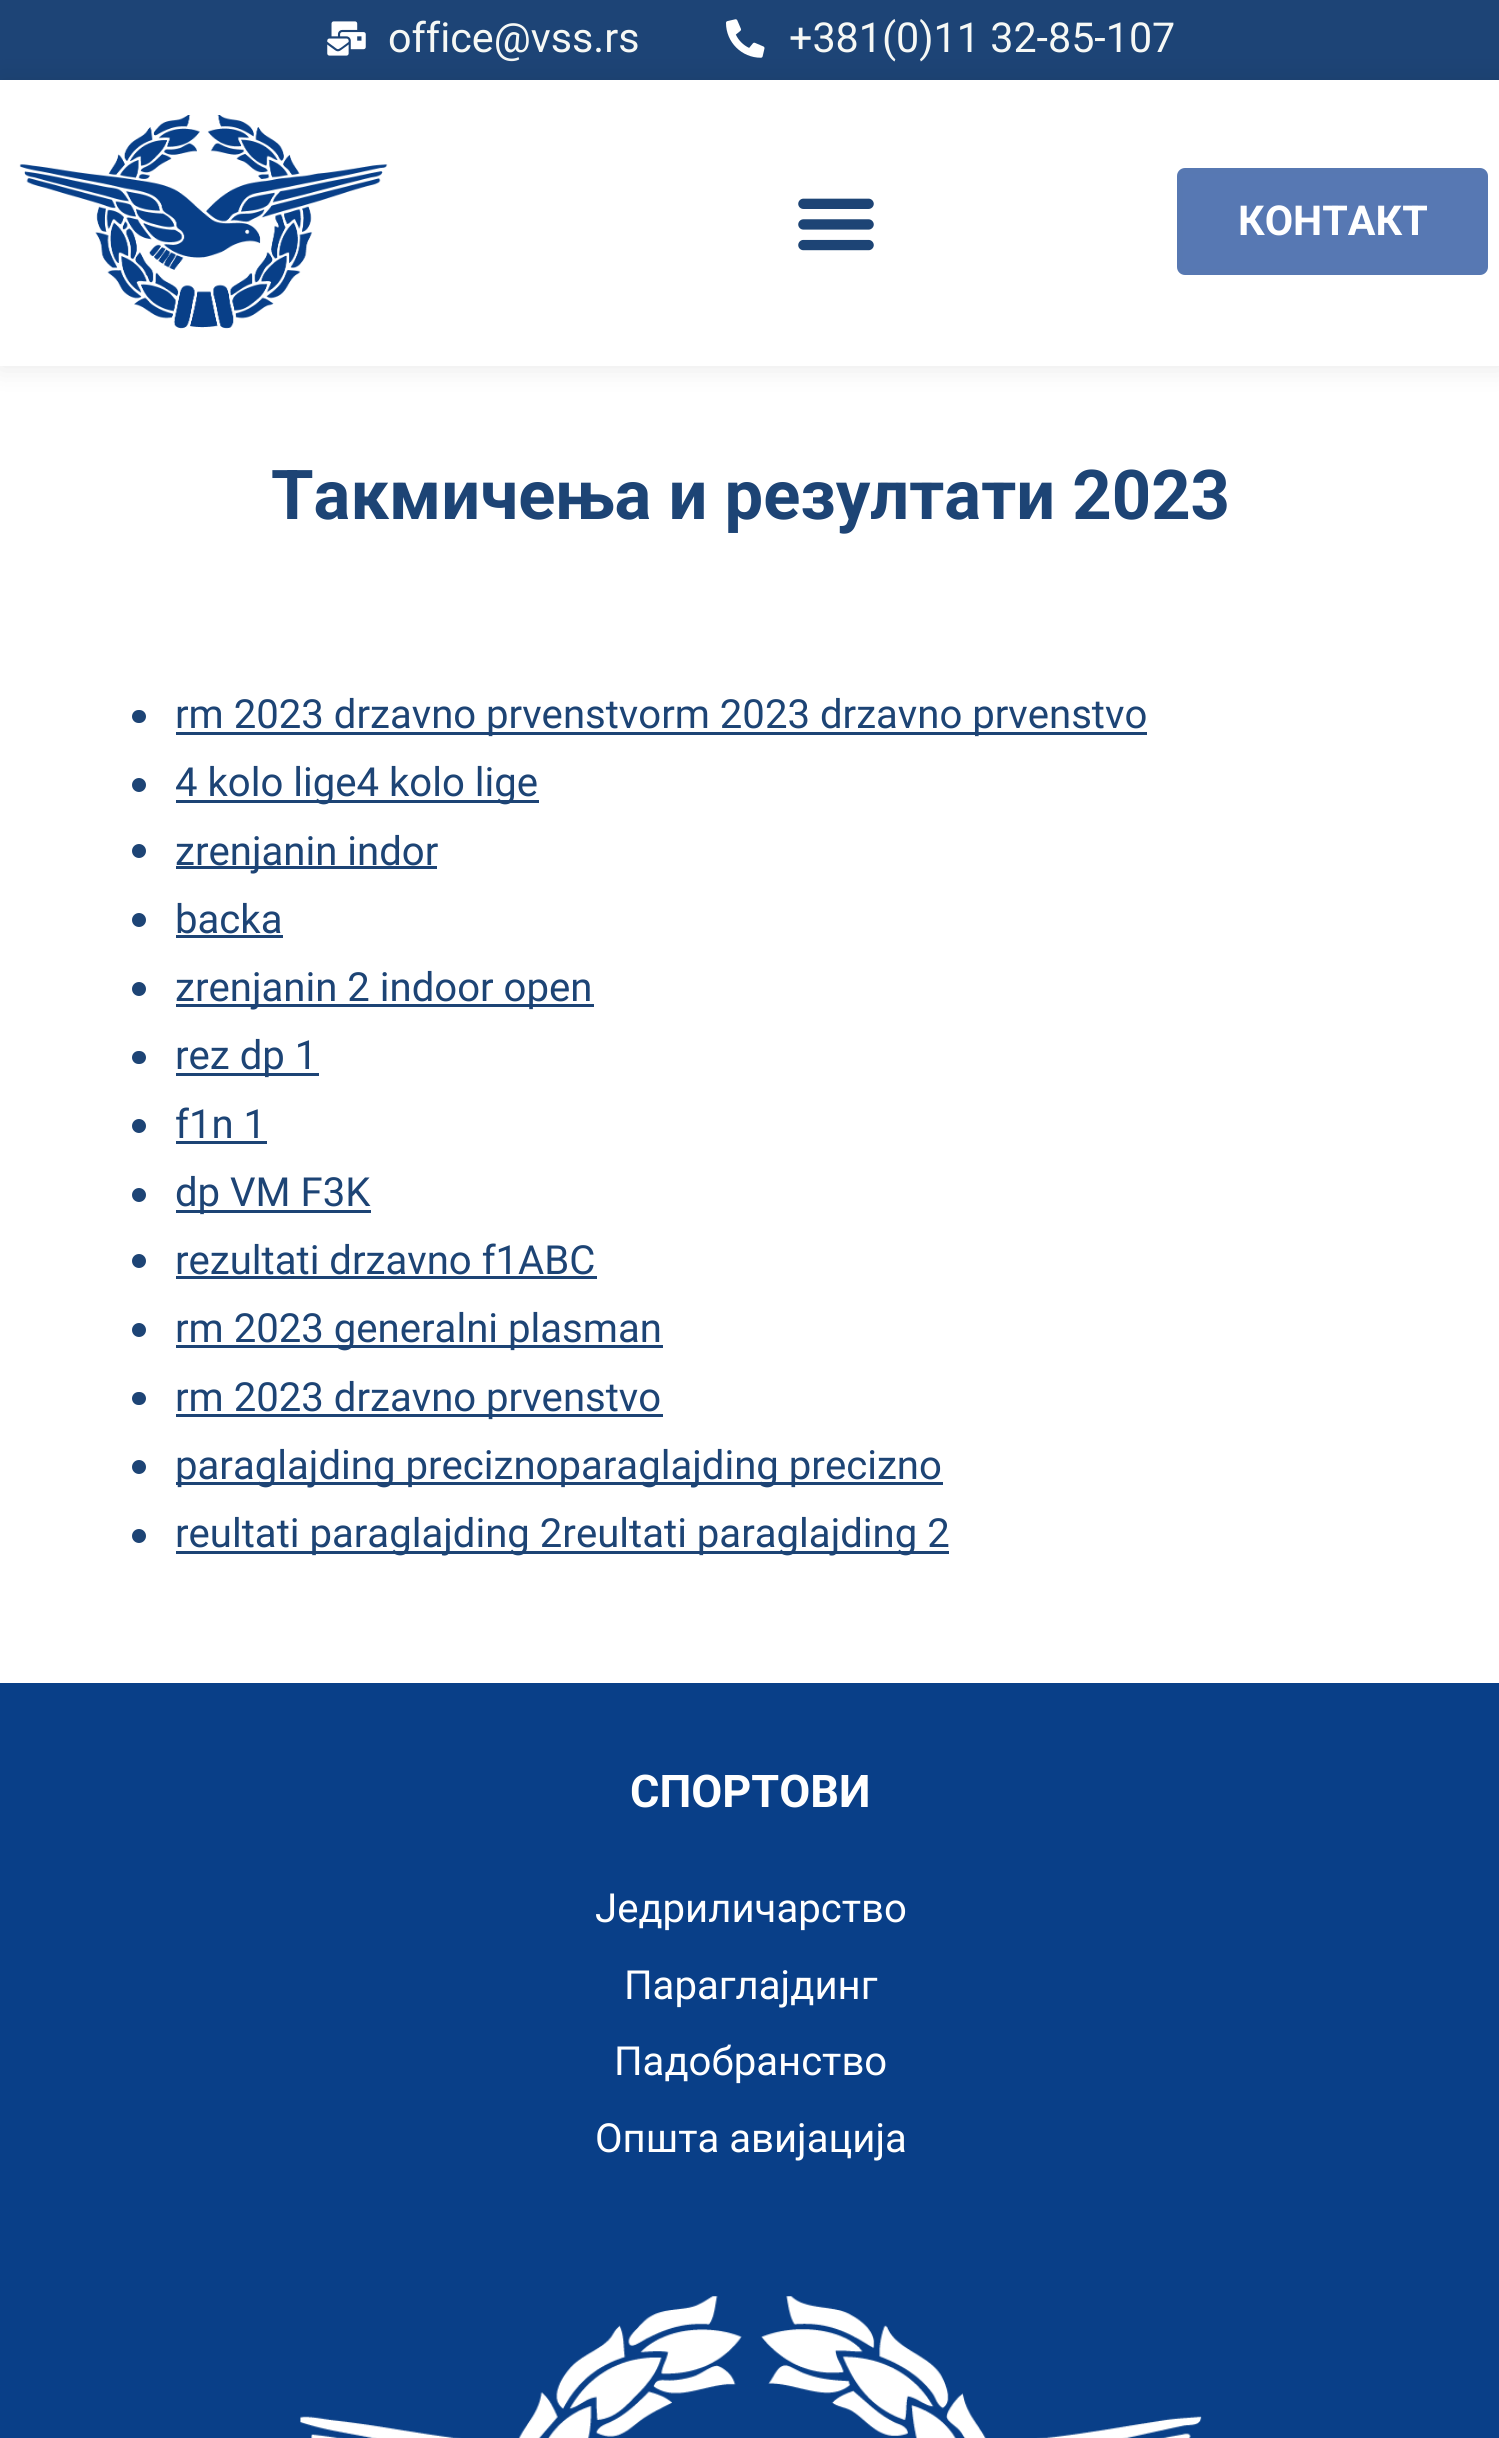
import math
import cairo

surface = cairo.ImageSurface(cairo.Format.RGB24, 1499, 2438)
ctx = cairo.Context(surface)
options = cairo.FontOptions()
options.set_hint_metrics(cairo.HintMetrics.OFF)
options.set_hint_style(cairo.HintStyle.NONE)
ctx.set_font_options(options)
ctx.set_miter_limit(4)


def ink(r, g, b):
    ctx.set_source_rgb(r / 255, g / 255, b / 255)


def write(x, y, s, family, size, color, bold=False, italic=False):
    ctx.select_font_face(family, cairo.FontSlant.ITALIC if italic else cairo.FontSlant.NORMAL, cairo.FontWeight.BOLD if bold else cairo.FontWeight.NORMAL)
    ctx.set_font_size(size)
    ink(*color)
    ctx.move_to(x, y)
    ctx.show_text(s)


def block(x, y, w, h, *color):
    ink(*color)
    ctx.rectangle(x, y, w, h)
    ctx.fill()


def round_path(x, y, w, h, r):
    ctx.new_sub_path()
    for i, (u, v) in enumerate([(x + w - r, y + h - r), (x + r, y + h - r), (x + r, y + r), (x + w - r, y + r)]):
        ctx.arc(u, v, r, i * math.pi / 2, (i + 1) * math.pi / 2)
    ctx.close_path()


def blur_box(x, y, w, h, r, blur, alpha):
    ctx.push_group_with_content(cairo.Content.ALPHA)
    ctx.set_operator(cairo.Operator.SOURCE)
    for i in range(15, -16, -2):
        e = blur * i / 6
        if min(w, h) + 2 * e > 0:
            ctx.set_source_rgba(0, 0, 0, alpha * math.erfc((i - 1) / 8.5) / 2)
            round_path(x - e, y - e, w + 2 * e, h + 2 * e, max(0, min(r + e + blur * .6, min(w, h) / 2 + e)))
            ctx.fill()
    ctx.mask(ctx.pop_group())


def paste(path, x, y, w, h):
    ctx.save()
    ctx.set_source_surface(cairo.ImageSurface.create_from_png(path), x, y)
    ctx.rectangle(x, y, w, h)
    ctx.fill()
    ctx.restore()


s1 = dict(family="Roboto", size=41.25, color=(246, 248, 245))
s2 = dict(family="Roboto", size=41.25, color=(255, 255, 255), bold=True)
s3 = dict(family="Roboto", size=68.75, color=(29, 68, 117), bold=True)
s4 = dict(family="Roboto", size=40.1, color=(29, 68, 117))
s5 = dict(family="Roboto", size=45, color=(255, 255, 255), bold=True)
s6 = dict(family="Roboto", size=40.1, color=(255, 255, 255))

ink(255, 255, 255)
ctx.paint()
block(0, 0, 1499, 80, 29, 68, 118)
paste("pic1.png", 327, 21, 39, 35)
write(388, 52, "office@vss.rs", **s1)
paste("pic2.png", 726, 19, 39, 39)
write(789, 52, "+381(0)11 32-85-107", **s1)
ink(0, 0, 0)
blur_box(0, 80, 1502, 286, 0, 14, 0.1)
block(0, 80, 1499, 286, 255, 255, 255)
paste("pic3.png", 19, 115, 369, 214)
paste("pic4.png", 798, 198, 76, 53)
ink(87, 120, 179)
round_path(1180, 171, 305, 101, 5)
ctx.fill_preserve()
ink(87, 120, 178)
ctx.set_line_width(6)
ctx.stroke()
write(1238, 235, "КОНТАКТ", **s2)
write(271, 519, "Такмичења и резултати 2023", **s3)
round_path(132, 710, 14, 13, 6.5)
ctx.fill()
block(176, 732, 971, 3, 29, 68, 117)
write(175, 728, "rm 2023 drzavno prvenstvorm 2023 drzavno prvenstvo", **s4)
ctx.new_path()
ctx.arc(139, 785, 7, 0, 2 * math.pi)
ctx.fill()
block(176, 800, 363, 3, 29, 68, 117)
write(175, 796, "4 kolo lige4 kolo lige", **s4)
ctx.new_path()
ctx.arc(139, 851, 7, 0, 2 * math.pi)
ctx.fill()
block(176, 866, 261, 3, 29, 68, 117)
write(175, 865, "zrenjanin indor", **s4)
ctx.new_path()
ctx.arc(139, 920, 7, 0, 2 * math.pi)
ctx.fill()
write(175, 933, "backa", **s4)
block(176, 935, 107, 3, 29, 68, 117)
ctx.new_path()
ctx.arc(139, 989, 7, 0, 2 * math.pi)
ctx.fill()
block(176, 1004, 418, 3, 29, 68, 117)
write(175, 1001, "zrenjanin 2 indoor open", **s4)
round_path(132, 1051, 14, 13, 6.5)
ctx.fill()
block(176, 1073, 143, 3, 29, 68, 117)
write(175, 1069, "rez dp 1", **s4)
ctx.new_path()
ctx.arc(139, 1126, 7, 0, 2 * math.pi)
ctx.fill()
write(175, 1138, "f1n 1", **s4)
block(176, 1141, 91, 3, 29, 68, 117)
ctx.new_path()
ctx.arc(139, 1195, 7, 0, 2 * math.pi)
ctx.fill()
block(176, 1210, 195, 3, 29, 68, 117)
write(175, 1206, "dp VM F3K", **s4)
ctx.new_path()
ctx.arc(139, 1261, 7, 0, 2 * math.pi)
ctx.fill()
write(175, 1274, "rezultati drzavno f1ABC", **s4)
block(176, 1276, 421, 3, 29, 68, 117)
ctx.new_path()
ctx.arc(139, 1330, 7, 0, 2 * math.pi)
ctx.fill()
block(176, 1345, 487, 3, 29, 68, 117)
write(175, 1342, "rm 2023 generalni plasman", **s4)
round_path(132, 1392, 14, 13, 6.5)
ctx.fill()
block(176, 1414, 487, 3, 29, 68, 117)
write(175, 1411, "rm 2023 drzavno prvenstvo", **s4)
ctx.new_path()
ctx.arc(139, 1467, 7, 0, 2 * math.pi)
ctx.fill()
block(176, 1482, 767, 3, 29, 68, 117)
write(175, 1479, "paraglajding preciznoparaglajding precizno", **s4)
ctx.new_path()
ctx.arc(139, 1536, 7, 0, 2 * math.pi)
ctx.fill()
block(176, 1551, 773, 3, 29, 68, 117)
write(175, 1547, "reultati paraglajding 2reultati paraglajding 2", **s4)
block(0, 1683, 1499, 755, 9, 63, 136)
write(630, 1807, "СПОРТОВИ", **s5)
write(595, 1922, "Једриличарство", **s6)
write(624, 1999, "Параглајдинг", **s6)
write(614, 2075, "Падобранство", **s6)
write(595, 2152, "Општа авијација", **s6)
paste("pic5.png", 300, 2296, 902, 142)
surface.write_to_png("screenshot.png")
